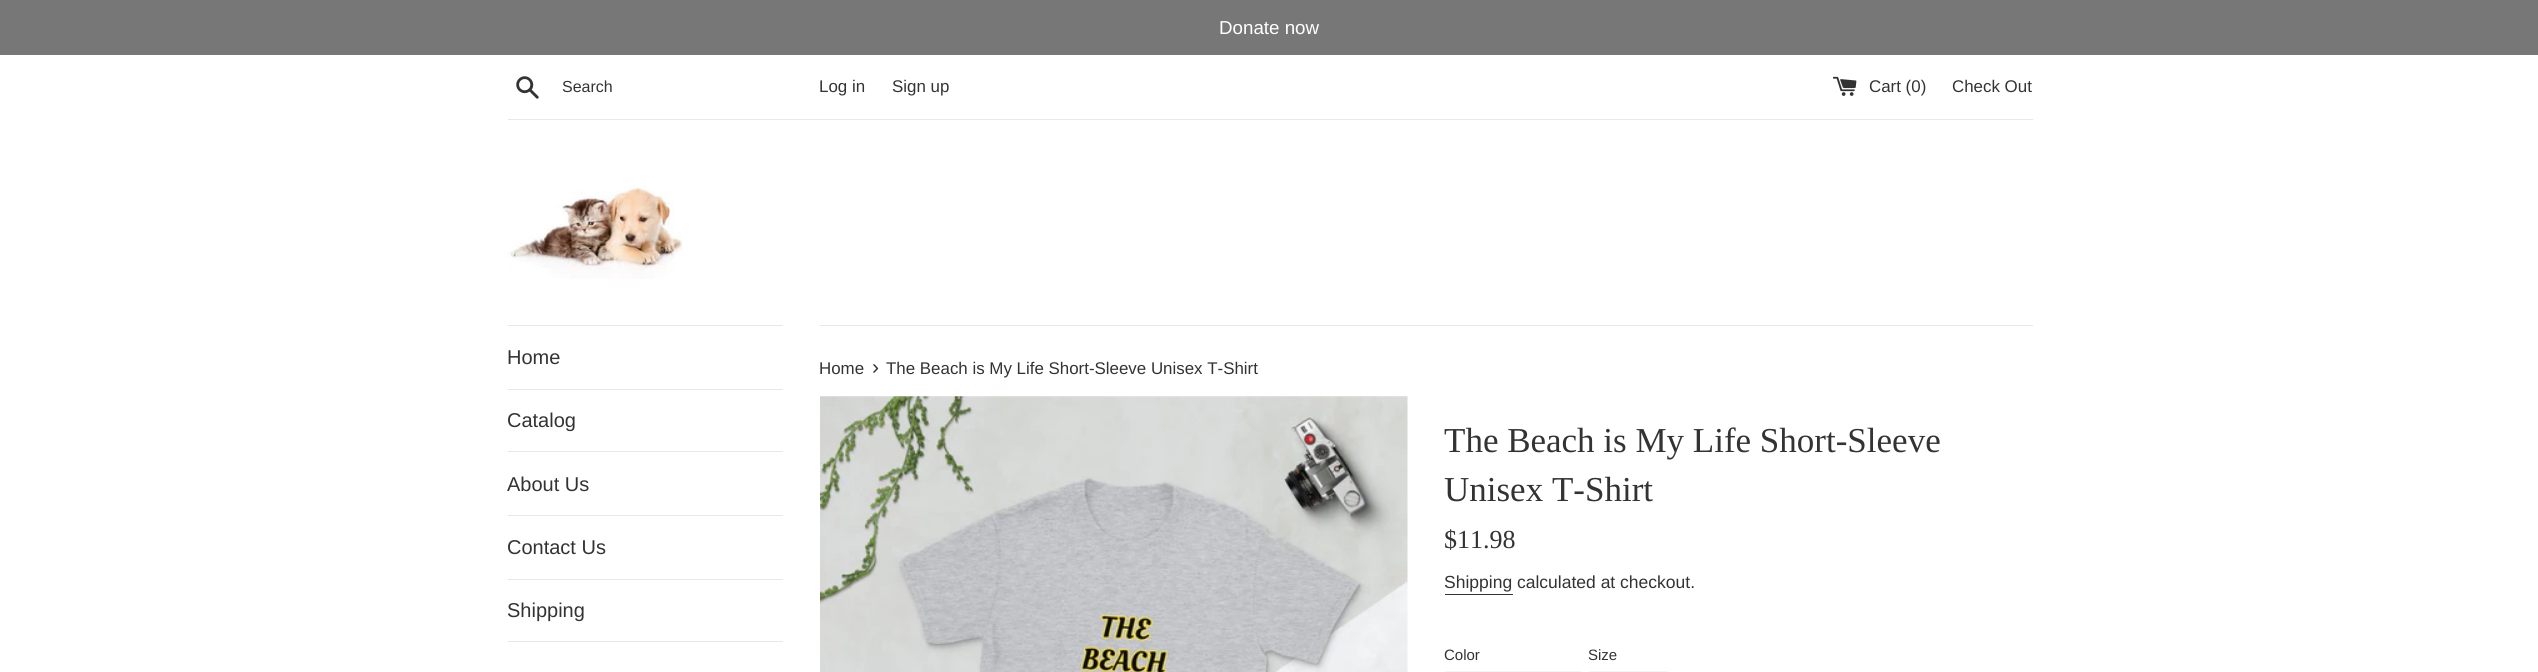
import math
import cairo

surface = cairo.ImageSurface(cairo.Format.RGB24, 2538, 672)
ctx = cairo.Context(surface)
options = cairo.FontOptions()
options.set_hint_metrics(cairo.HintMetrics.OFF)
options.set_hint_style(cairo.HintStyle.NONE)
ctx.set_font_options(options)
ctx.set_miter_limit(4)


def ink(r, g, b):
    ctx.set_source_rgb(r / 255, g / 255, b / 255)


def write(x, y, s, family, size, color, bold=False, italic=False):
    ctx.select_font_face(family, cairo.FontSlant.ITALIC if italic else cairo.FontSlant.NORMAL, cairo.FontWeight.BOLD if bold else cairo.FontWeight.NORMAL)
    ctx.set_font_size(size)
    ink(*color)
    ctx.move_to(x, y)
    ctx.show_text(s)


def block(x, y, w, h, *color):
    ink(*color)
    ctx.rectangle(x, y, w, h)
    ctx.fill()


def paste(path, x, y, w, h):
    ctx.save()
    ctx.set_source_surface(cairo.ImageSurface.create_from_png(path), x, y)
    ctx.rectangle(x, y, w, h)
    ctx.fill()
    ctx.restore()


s1 = dict(family="Liberation Sans", size=18.75, color=(255, 255, 255))
s2 = dict(family="Liberation Sans", size=16, color=(51, 51, 51))
s3 = dict(family="Liberation Sans", size=16.9, color=(51, 51, 51))
s4 = dict(family="Liberation Sans", size=20, color=(51, 51, 51))
s5 = dict(family="Liberation Sans", size=21, color=(51, 51, 51))
s6 = dict(family="Liberation Serif", size=35, color=(51, 51, 51))
s7 = dict(family="Liberation Serif", size=26, color=(51, 51, 51))
s8 = dict(family="Liberation Sans", size=17.5, color=(51, 51, 51))
s9 = dict(family="Liberation Sans", size=15, color=(51, 51, 51))

ink(255, 255, 255)
ctx.paint()
block(0, 0, 2538, 55, 119, 119, 119)
write(1219, 34, "Donate now", **s1)
paste("pic1.png", 516, 76, 23, 23)
write(562, 92, "Search", **s2)
write(819, 92, "Log in", **s3)
write(892, 92, "Sign up", **s3)
paste("pic2.png", 1833, 76, 24, 20)
write(1869, 92, "Cart (0)", **s3)
write(1952, 92, "Check Out", **s3)
block(508, 119, 1525, 1, 232, 232, 232)
paste("pic3.png", 507, 185, 176, 94)
block(508, 325, 275, 1, 232, 232, 232)
block(508, 389, 275, 1, 232, 232, 232)
write(507, 364, "Home", **s4)
block(508, 451, 275, 1, 232, 232, 232)
write(507, 427, "Catalog", **s4)
block(508, 515, 275, 1, 232, 232, 232)
write(507, 491, "About Us", **s4)
block(508, 579, 275, 1, 232, 232, 232)
write(507, 554, "Contact Us", **s4)
block(508, 641, 275, 1, 232, 232, 232)
write(507, 617, "Shipping", **s4)
block(820, 325, 1213, 1, 232, 232, 232)
write(819, 374, "Home", **s3)
write(872, 374, "›", **s5)
write(886, 374, "The Beach is My Life Short-Sleeve Unisex T-Shirt", **s3)
paste("pic4.png", 820, 396, 588, 276)
write(1444, 452, "The Beach is My Life Short-Sleeve", **s6)
write(1444, 501, "Unisex T-Shirt", **s6)
write(1444, 548, "$11.98", **s7)
write(1444, 588, "Shipping calculated at checkout.", **s8)
block(1445, 594, 68, 1, 51, 51, 51)
write(1444, 660, "Color", **s9)
block(1445, 671, 136, 1, 244, 244, 244)
write(1588, 660, "Size", **s9)
block(1589, 671, 79, 1, 244, 244, 244)
surface.write_to_png("screenshot.png")
